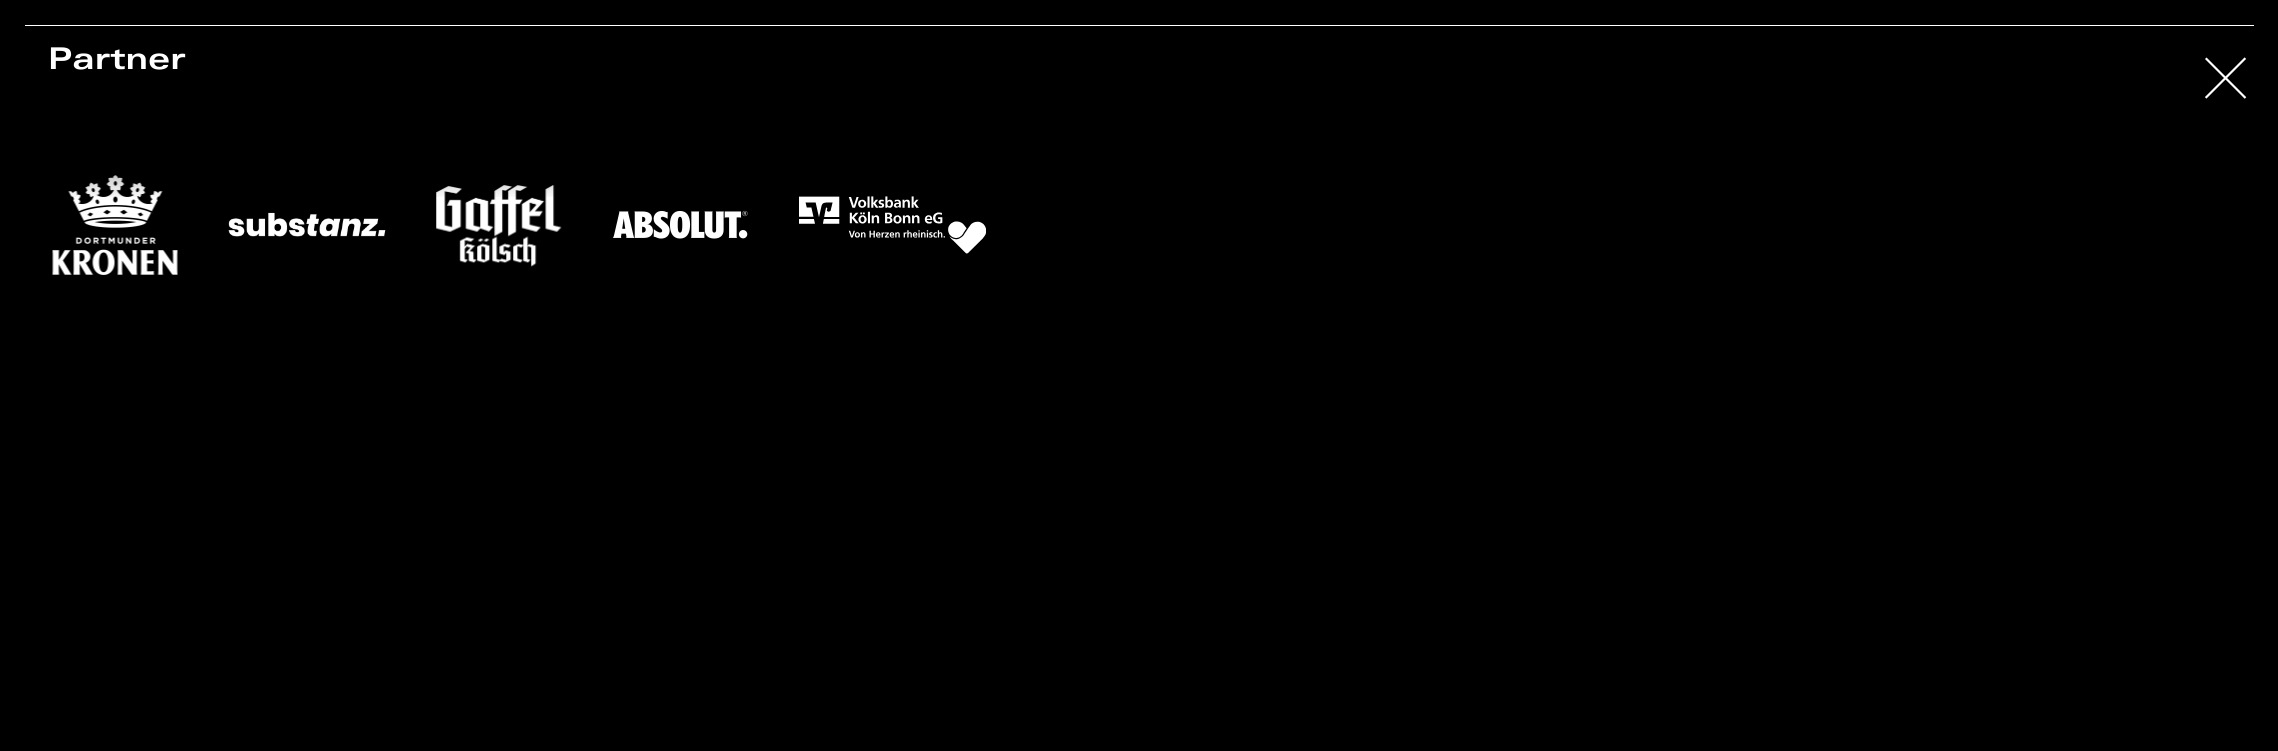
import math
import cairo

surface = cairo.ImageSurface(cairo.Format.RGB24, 2278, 751)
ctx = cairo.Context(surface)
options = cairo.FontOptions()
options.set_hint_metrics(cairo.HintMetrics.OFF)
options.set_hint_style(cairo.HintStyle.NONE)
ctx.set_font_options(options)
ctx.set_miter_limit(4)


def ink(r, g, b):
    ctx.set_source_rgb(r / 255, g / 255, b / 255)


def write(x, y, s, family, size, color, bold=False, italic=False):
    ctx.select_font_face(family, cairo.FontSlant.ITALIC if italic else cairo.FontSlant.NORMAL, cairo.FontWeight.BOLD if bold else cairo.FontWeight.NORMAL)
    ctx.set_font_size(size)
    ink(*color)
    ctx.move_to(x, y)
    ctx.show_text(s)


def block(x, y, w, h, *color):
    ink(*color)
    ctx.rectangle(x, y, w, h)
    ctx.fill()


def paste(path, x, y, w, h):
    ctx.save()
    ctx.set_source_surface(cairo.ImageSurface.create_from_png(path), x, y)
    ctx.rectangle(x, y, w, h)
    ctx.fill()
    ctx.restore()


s1 = dict(family="Univers", size=30, color=(255, 255, 255), bold=True)

ink(0, 0, 0)
ctx.paint()
block(25, 25, 2229, 1, 255, 255, 255)
write(48, 69, "Partner", **s1)
ctx.save()
ctx.new_path()
ctx.move_to(2225.5, 38.5)
ctx.line_to(2265.5, 78)
ctx.line_to(2225.5, 118)
ctx.line_to(2186, 78)
ctx.close_path()
ctx.clip()
ctx.new_path()
ctx.move_to(2225.5, 38.5)
ctx.line_to(2265.5, 78)
ctx.line_to(2225.5, 118)
ctx.line_to(2186, 78)
ctx.close_path()
ctx.clip()
ctx.new_path()
ctx.move_to(2245.5, 58)
ctx.line_to(2205.5, 98)
ctx.move_to(2205.5, 58)
ctx.line_to(2245.5, 98)
ctx.set_line_width(2.2)
ctx.stroke()
ctx.restore()
paste("pic1.png", 52, 175, 126, 100)
paste("pic2.png", 228, 212, 158, 25)
paste("pic3.png", 436, 185, 126, 82)
paste("pic4.png", 612, 210, 136, 29)
paste("pic5.png", 799, 196, 187, 58)
gradient = cairo.LinearGradient(1139, 200, 1139, 75)
gradient.add_color_stop_rgba(0, 0, 0, 0, 0)
gradient.add_color_stop_rgba(1, 0, 0, 0, 1)
ctx.set_source(gradient)
ctx.rectangle(68, 175, 845, 22)
ctx.fill()
surface.write_to_png("screenshot.png")
